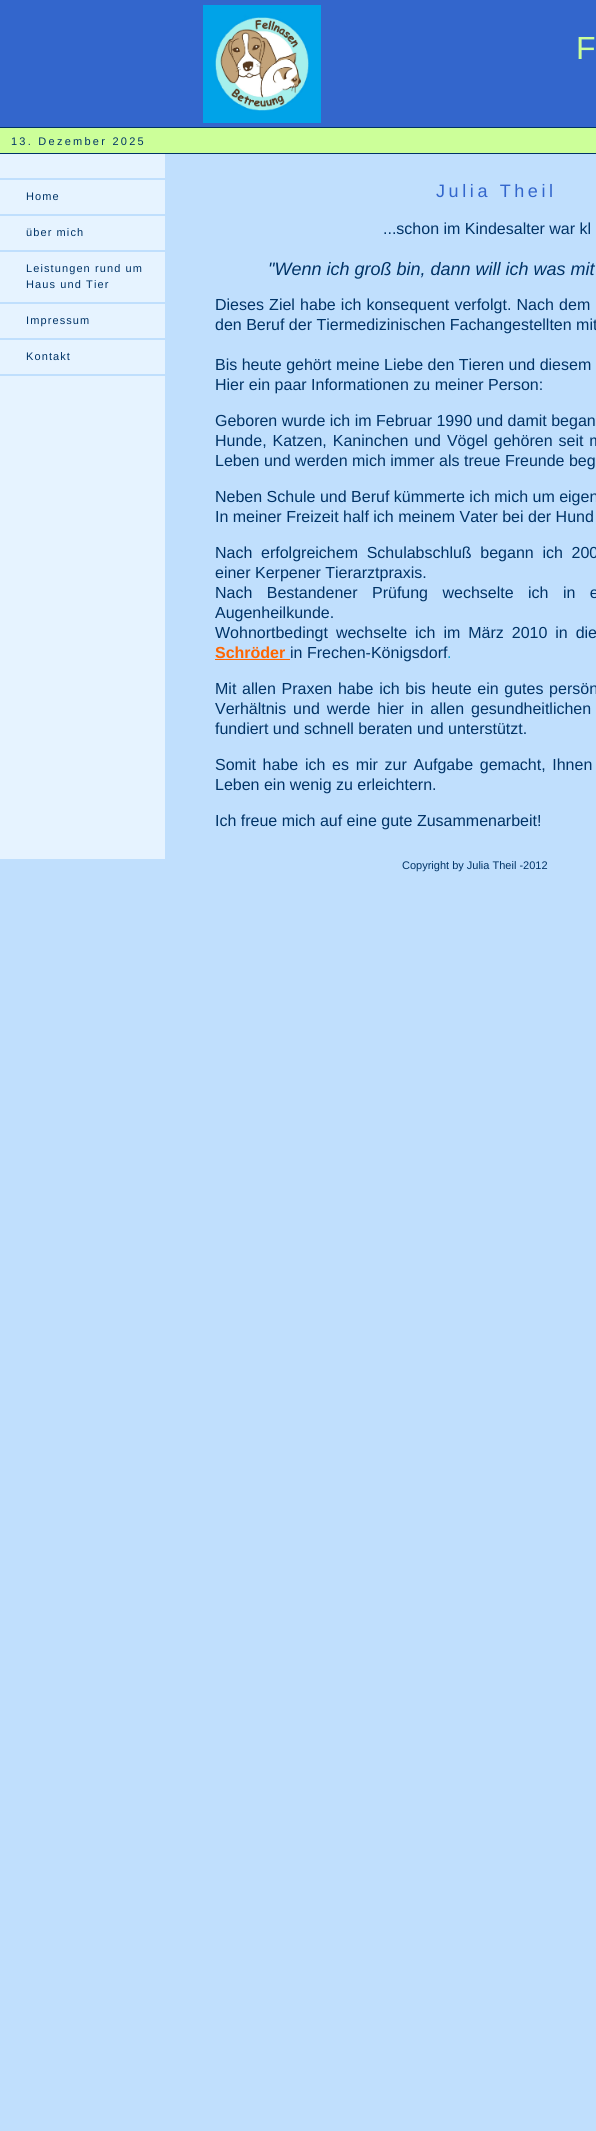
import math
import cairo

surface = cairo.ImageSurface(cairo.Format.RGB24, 596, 2131)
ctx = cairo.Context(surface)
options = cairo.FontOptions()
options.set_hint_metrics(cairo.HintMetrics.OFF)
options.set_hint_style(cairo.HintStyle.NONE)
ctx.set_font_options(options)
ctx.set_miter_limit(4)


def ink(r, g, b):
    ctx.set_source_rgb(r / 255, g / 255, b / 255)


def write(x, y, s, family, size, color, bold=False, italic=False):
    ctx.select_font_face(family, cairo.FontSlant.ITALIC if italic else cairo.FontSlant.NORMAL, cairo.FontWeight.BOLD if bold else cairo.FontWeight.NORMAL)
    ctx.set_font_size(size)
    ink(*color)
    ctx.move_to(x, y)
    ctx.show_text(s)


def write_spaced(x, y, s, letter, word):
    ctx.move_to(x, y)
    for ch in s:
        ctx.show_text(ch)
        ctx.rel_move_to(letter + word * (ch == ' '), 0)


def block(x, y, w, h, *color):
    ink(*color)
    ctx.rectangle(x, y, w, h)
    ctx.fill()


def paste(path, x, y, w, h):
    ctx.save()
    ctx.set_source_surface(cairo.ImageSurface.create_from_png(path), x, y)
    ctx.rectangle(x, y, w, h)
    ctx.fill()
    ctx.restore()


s1 = dict(family="Liberation Sans", size=16, color=(0, 51, 102))
s2 = dict(family="Liberation Sans", size=18, color=(0, 51, 102), italic=True)
s3 = dict(family="Liberation Sans", size=16, color=(255, 102, 0), bold=True)
s4 = dict(family="Liberation Sans", size=16, color=(0, 153, 204))
s5 = dict(family="Liberation Sans", size=11, color=(0, 51, 102))

ink(192, 223, 253)
ctx.paint()
block(0, 0, 596, 127, 51, 102, 204)
paste("pic1.png", 203, 5, 118, 118)
ctx.select_font_face("Liberation Sans")
ctx.set_font_size(32)
ink(204, 255, 153)
write_spaced(576, 59, "F", 5, 0)
block(0, 127, 596, 1, 0, 51, 102)
block(0, 128, 596, 25, 204, 255, 153)
ctx.set_font_size(11)
ink(0, 51, 102)
write_spaced(11, 145, "13. Dezember 2025", 2.25, 0)
block(0, 153, 596, 1, 0, 51, 102)
block(0, 154, 165, 705, 230, 243, 255)
block(0, 178, 165, 2, 192, 223, 253)
block(0, 214, 165, 2, 192, 223, 253)
ink(0, 51, 102)
write_spaced(26, 200, "Home", 1.1, 0)
block(0, 250, 165, 2, 192, 223, 253)
ink(0, 51, 102)
write_spaced(26, 236, "über mich", 1.1, 0)
block(0, 302, 165, 2, 192, 223, 253)
ink(0, 51, 102)
write_spaced(26, 272, "Leistungen rund um", 1.1, 0)
write_spaced(26, 288, "Haus und Tier", 1.1, 0)
block(0, 338, 165, 2, 192, 223, 253)
ink(0, 51, 102)
write_spaced(26, 324, "Impressum", 1.1, 0)
block(0, 374, 165, 2, 192, 223, 253)
ink(0, 51, 102)
write_spaced(26, 360, "Kontakt", 1.1, 0)
ctx.set_font_size(18)
ink(51, 102, 204)
write_spaced(436, 197, "Julia Theil", 3.6, 0)
write(383, 234, "...schon im Kindesalter war kl", **s1)
write(268, 275, "\"Wenn ich groß bin, dann will ich was mit", **s2)
ctx.select_font_face("Liberation Sans")
ctx.set_font_size(16)
write_spaced(215, 310, "Dieses Ziel habe ich konsequent verfolgt. Nach dem", 0, 0.75)
write(215, 330, "den Beruf der Tiermedizinischen Fachangestellten mit", **s1)
write(215, 370, "Bis heute gehört meine Liebe den Tieren und diesem", **s1)
write(215, 390, "Hier ein paar Informationen zu meiner Person:", **s1)
write(215, 426, "Geboren wurde ich im Februar 1990 und damit began", **s1)
write_spaced(215, 446, "Hunde, Katzen, Kaninchen und Vögel gehören seit m", 0, 1.5)
write(215, 466, "Leben und werden mich immer als treue Freunde beg", **s1)
write(215, 502, "Neben Schule und Beruf kümmerte ich mich um eigen", **s1)
write(215, 522, "In meiner Freizeit half ich meinem Vater bei der Hund", **s1)
write_spaced(215, 558, "Nach erfolgreichem Schulabschluß begann ich 200", 0, 4.25)
write(215, 578, "einer Kerpener Tierarztpraxis.", **s1)
write_spaced(215, 598, "Nach Bestandener Prüfung wechselte ich in e", 0, 10)
write(215, 618, "Augenheilkunde.", **s1)
write_spaced(215, 638, "Wohnortbedingt wechselte ich im März 2010 in die", 0, 3.5)
write(215, 658, "Schröder", **s3)
block(215, 659, 75, 1, 255, 102, 0)
write(290, 658, "in Frechen-Königsdorf", **s1)
write(447, 658, ".", **s4)
ink(0, 51, 102)
write_spaced(215, 694, "Mit allen Praxen habe ich bis heute ein gutes persön", 0, 1.25)
write_spaced(215, 714, "Verhältnis und werde hier in allen gesundheitlichen", 0, 2.5)
write(215, 734, "fundiert und schnell beraten und unterstützt.", **s1)
write_spaced(215, 770, "Somit habe ich es mir zur Aufgabe gemacht, Ihnen", 0, 2.25)
write(215, 790, "Leben ein wenig zu erleichtern.", **s1)
write(215, 826, "Ich freue mich auf eine gute Zusammenarbeit!", **s1)
write(402, 869, "Copyright by Julia Theil -2012", **s5)
surface.write_to_png("screenshot.png")
